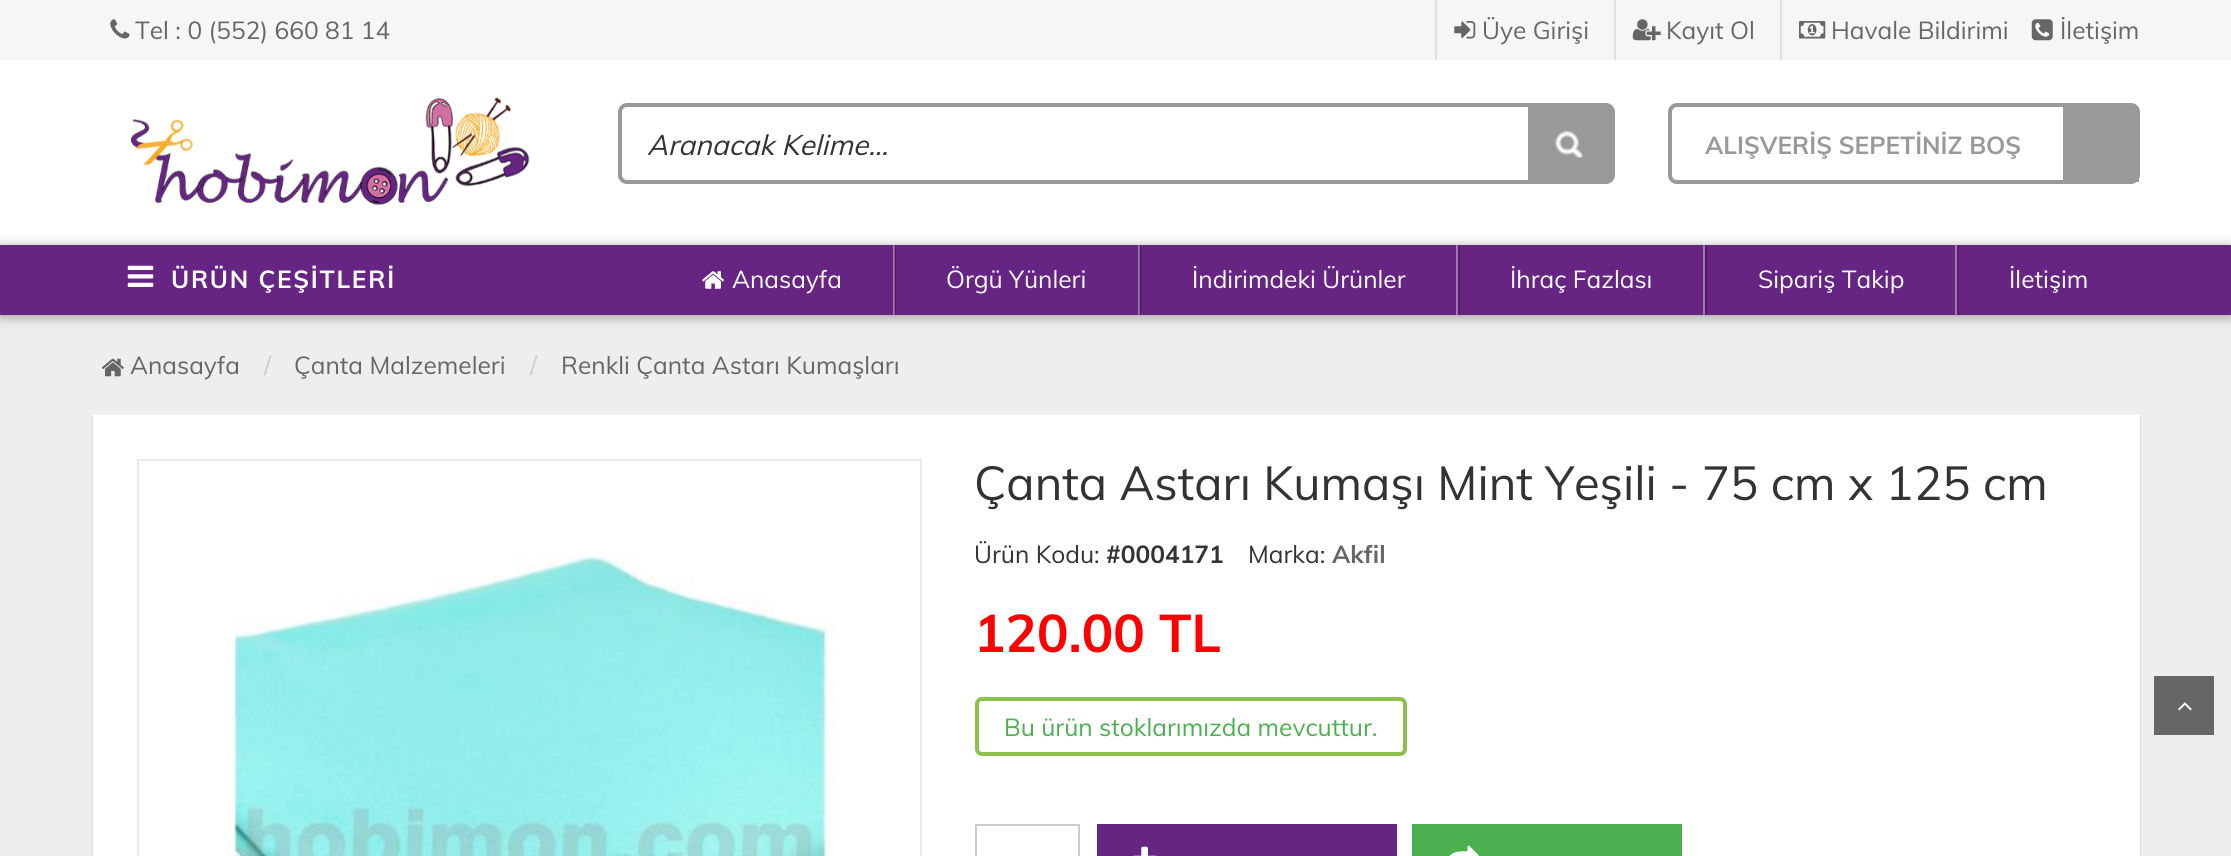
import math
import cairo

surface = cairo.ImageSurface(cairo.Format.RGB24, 2231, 856)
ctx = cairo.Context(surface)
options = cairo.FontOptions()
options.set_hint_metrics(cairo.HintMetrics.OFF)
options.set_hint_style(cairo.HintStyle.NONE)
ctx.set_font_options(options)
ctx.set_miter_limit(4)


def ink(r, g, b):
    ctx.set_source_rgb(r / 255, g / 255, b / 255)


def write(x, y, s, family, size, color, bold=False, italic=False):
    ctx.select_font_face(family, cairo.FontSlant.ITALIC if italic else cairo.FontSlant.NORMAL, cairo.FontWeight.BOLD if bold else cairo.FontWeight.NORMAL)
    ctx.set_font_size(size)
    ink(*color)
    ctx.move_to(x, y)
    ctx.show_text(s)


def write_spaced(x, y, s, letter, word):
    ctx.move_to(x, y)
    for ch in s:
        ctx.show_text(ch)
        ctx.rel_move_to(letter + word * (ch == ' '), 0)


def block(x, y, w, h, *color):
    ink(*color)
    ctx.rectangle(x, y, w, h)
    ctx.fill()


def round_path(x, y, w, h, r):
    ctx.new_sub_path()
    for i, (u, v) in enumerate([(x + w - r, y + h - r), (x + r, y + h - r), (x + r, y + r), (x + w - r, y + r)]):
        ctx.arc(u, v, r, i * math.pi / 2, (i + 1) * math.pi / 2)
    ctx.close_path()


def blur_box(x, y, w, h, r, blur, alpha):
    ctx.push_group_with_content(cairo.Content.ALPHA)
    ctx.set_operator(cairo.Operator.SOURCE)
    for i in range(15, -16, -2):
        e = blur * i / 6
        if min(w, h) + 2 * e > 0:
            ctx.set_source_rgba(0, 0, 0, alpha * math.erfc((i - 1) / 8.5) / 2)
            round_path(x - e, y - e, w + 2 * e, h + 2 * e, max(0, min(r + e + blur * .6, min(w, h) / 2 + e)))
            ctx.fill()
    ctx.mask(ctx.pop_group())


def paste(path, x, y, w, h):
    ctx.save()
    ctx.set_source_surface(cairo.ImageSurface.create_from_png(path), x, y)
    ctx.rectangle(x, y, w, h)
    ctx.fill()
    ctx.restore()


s1 = dict(family="Muli", size=24.5, color=(102, 102, 102))
s2 = dict(family="Muli", size=28.25, color=(51, 51, 51), italic=True)
s3 = dict(family="Muli", size=24.5, color=(153, 153, 153), bold=True)
s4 = dict(family="Muli", size=24.5, color=(255, 255, 255))
s5 = dict(family="Muli", size=24.5, color=(204, 204, 204))
s6 = dict(family="Muli", size=47.25, color=(51, 51, 51))
s7 = dict(family="Muli", size=24.5, color=(51, 51, 51))
s8 = dict(family="Muli", size=24.5, color=(51, 51, 51), bold=True)
s9 = dict(family="Muli", size=24.5, color=(102, 102, 102), bold=True)
s10 = dict(family="Muli", size=52.5, color=(255, 0, 0), bold=True)
s11 = dict(family="Muli", size=24.5, color=(76, 175, 80))

ink(238, 238, 238)
ctx.paint()
block(0, 60, 2231, 185, 255, 255, 255)
block(0, 0, 2231, 60, 246, 246, 246)
paste("pic1.png", 110, 19, 20, 20)
write(135, 39, "Tel : 0 (552) 660 81 14", **s1)
block(1435, 0, 2, 60, 224, 224, 224)
paste("pic2.png", 1454, 21, 22, 18)
write(1482, 39, "Üye Girişi", **s1)
block(1614, 0, 2, 60, 224, 224, 224)
paste("pic3.png", 1632, 19, 29, 22)
write(1666, 39, "Kayıt Ol", **s1)
block(1780, 0, 2, 60, 224, 224, 224)
paste("pic4.png", 1799, 21, 27, 18)
write(1831, 39, "Havale Bildirimi", **s1)
paste("pic5.png", 2031, 19, 22, 22)
write(2060, 39, "İletişim", **s1)
paste("pic6.png", 130, 97, 400, 108)
round_path(620, 105, 993, 77, 7)
ink(153, 153, 153)
ctx.set_line_width(4)
ctx.stroke()
write(647, 155, "Aranacak Kelime...", **s2)
block(1528, 107, 83, 73, 153, 153, 153)
paste("pic7.png", 1555, 130, 28, 28)
round_path(1670, 105, 468, 77, 7)
ctx.stroke()
write(1705, 154, "ALIŞVERİŞ SEPETİNİZ BOŞ", **s3)
block(2063, 107, 76, 75, 153, 153, 153)
ink(156, 156, 156)
blur_box(0, 247, 2231, 70, 0, 6, 1)
block(0, 245, 2231, 70, 102, 36, 131)
block(1140, 245, 1, 70, 82, 29, 105)
block(895, 245, 1, 70, 82, 29, 105)
paste("pic8.png", 127, 265, 27, 22)
ink(255, 255, 255)
write_spaced(171, 288, "ÜRÜN ÇEŞİTLERİ", 1.75, 0)
block(893, 245, 1, 70, 160, 119, 178)
block(894, 245, 1, 70, 128, 95, 142)
paste("pic9.png", 702, 271, 23, 18)
write(732, 288, "Anasayfa", **s4)
block(1138, 245, 1, 70, 160, 119, 178)
block(1139, 245, 1, 70, 128, 95, 142)
write(946, 288, "Örgü Yünleri", **s4)
block(1456, 245, 2, 70, 160, 119, 178)
write(1192, 288, "İndirimdeki Ürünler", **s4)
block(1703, 245, 2, 70, 160, 119, 178)
block(1458, 245, 2, 70, 82, 29, 105)
write(1510, 288, "İhraç Fazlası", **s4)
block(1955, 245, 2, 70, 160, 119, 178)
block(1705, 245, 2, 70, 82, 29, 105)
write(1758, 288, "Sipariş Takip", **s4)
block(1957, 245, 2, 70, 82, 29, 105)
write(2009, 288, "İletişim", **s4)
paste("pic10.png", 101, 358, 23, 19)
write(130, 374, "Anasayfa", **s1)
write(264, 374, "/", **s5)
write(294, 374, "Çanta Malzemeleri", **s1)
write(530, 374, "/", **s5)
write(561, 374, "Renkli Çanta Astarı Kumaşları", **s1)
ink(0, 0, 0)
blur_box(93, 417, 2047, 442, 0, 1, 0.2)
block(93, 415, 2047, 441, 255, 255, 255)
ctx.rectangle(138, 460, 783, 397)
ink(234, 234, 234)
ctx.set_line_width(2)
ctx.stroke()
paste("pic11.png", 234, 556, 600, 300)
write(974, 500, "Çanta Astarı Kumaşı Mint Yeşili - 75 cm x 125 cm", **s6)
write(974, 563, "Ürün Kodu:", **s7)
write(1106, 563, "#0004171", **s8)
write(1248, 563, "Marka:", **s7)
write(1332, 563, "Akfil", **s9)
write(974, 652, "120.00 TL", **s10)
round_path(977, 699, 428, 55, 5)
ink(139, 195, 74)
ctx.set_line_width(4)
ctx.stroke()
write(1004, 736, "Bu ürün stoklarımızda mevcuttur.", **s11)
ctx.rectangle(976, 825, 103, 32)
ink(204, 204, 204)
ctx.set_line_width(2)
ctx.stroke()
block(1097, 824, 300, 32, 102, 36, 131)
paste("pic12.png", 1133, 846, 23, 10)
block(1412, 824, 270, 32, 76, 175, 80)
paste("pic13.png", 1449, 845, 30, 11)
block(2154, 676, 60, 59, 102, 102, 102)
paste("pic14.png", 2178, 702, 14, 9)
surface.write_to_png("screenshot.png")
